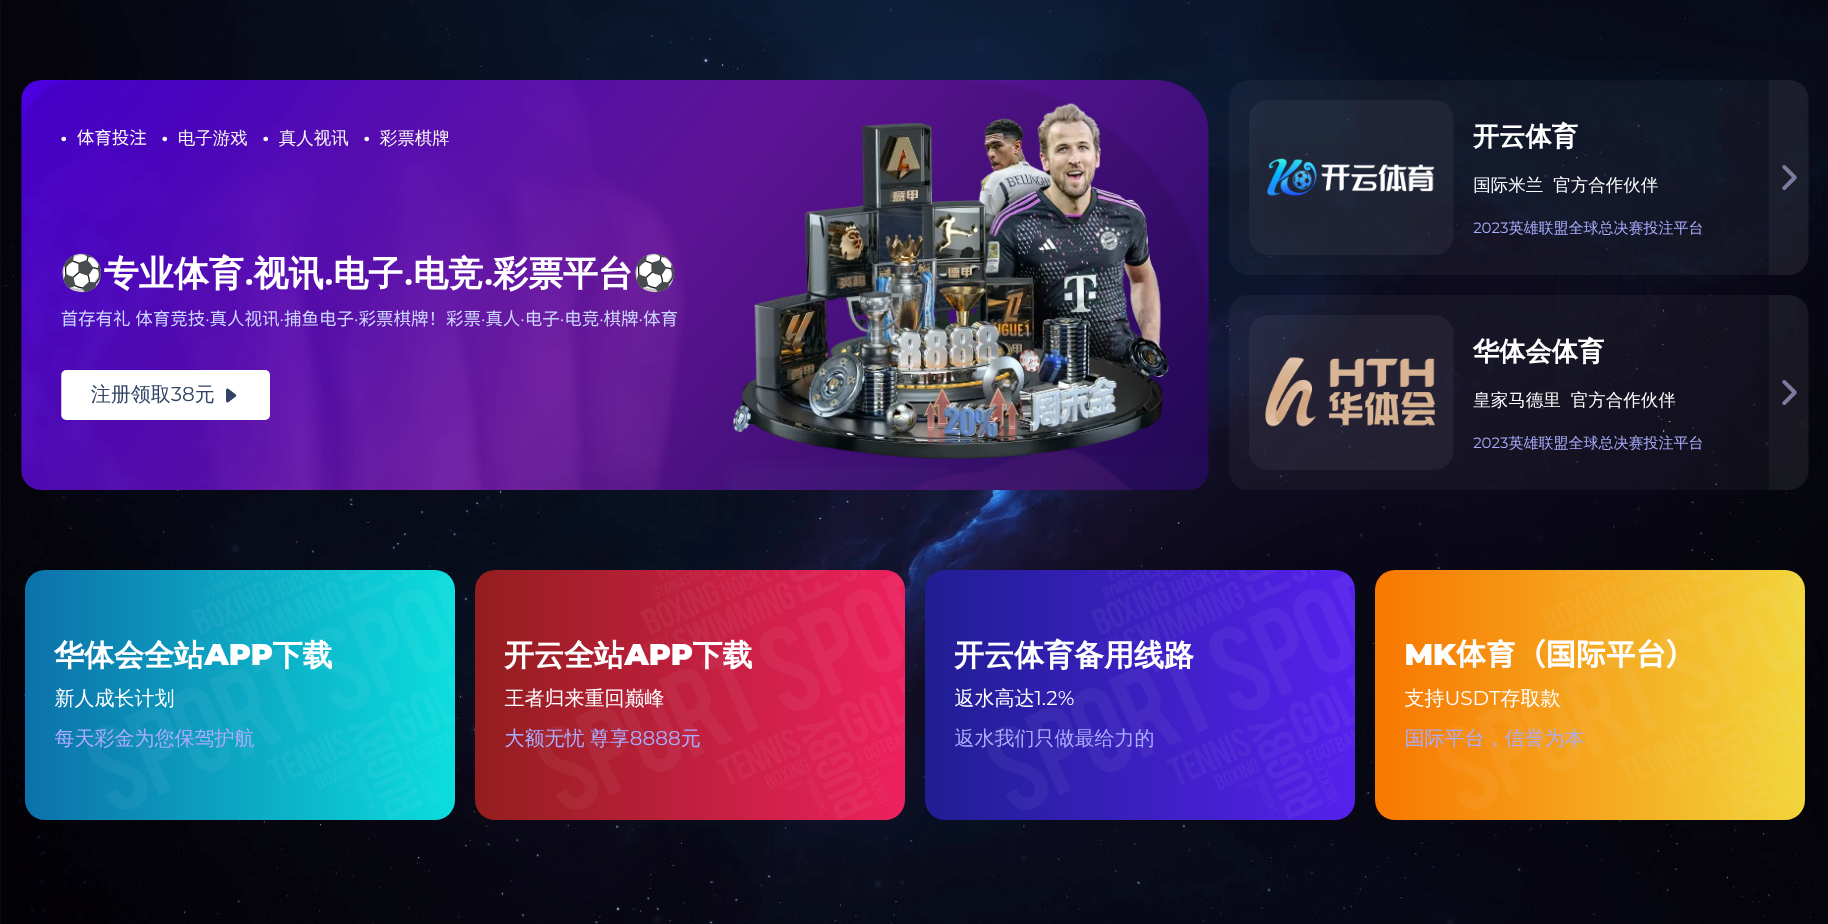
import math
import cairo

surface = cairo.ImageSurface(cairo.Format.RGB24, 1828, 924)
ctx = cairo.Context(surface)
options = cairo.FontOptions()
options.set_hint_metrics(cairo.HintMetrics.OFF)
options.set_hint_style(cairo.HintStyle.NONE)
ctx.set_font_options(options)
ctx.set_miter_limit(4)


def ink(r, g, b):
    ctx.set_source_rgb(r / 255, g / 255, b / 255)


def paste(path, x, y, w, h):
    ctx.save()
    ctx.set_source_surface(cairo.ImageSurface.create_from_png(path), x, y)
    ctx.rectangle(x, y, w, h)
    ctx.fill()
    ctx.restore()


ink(255, 255, 255)
ctx.paint()
paste("pic1.png", 0, 0, 1828, 924)
surface.write_to_png("screenshot.png")
